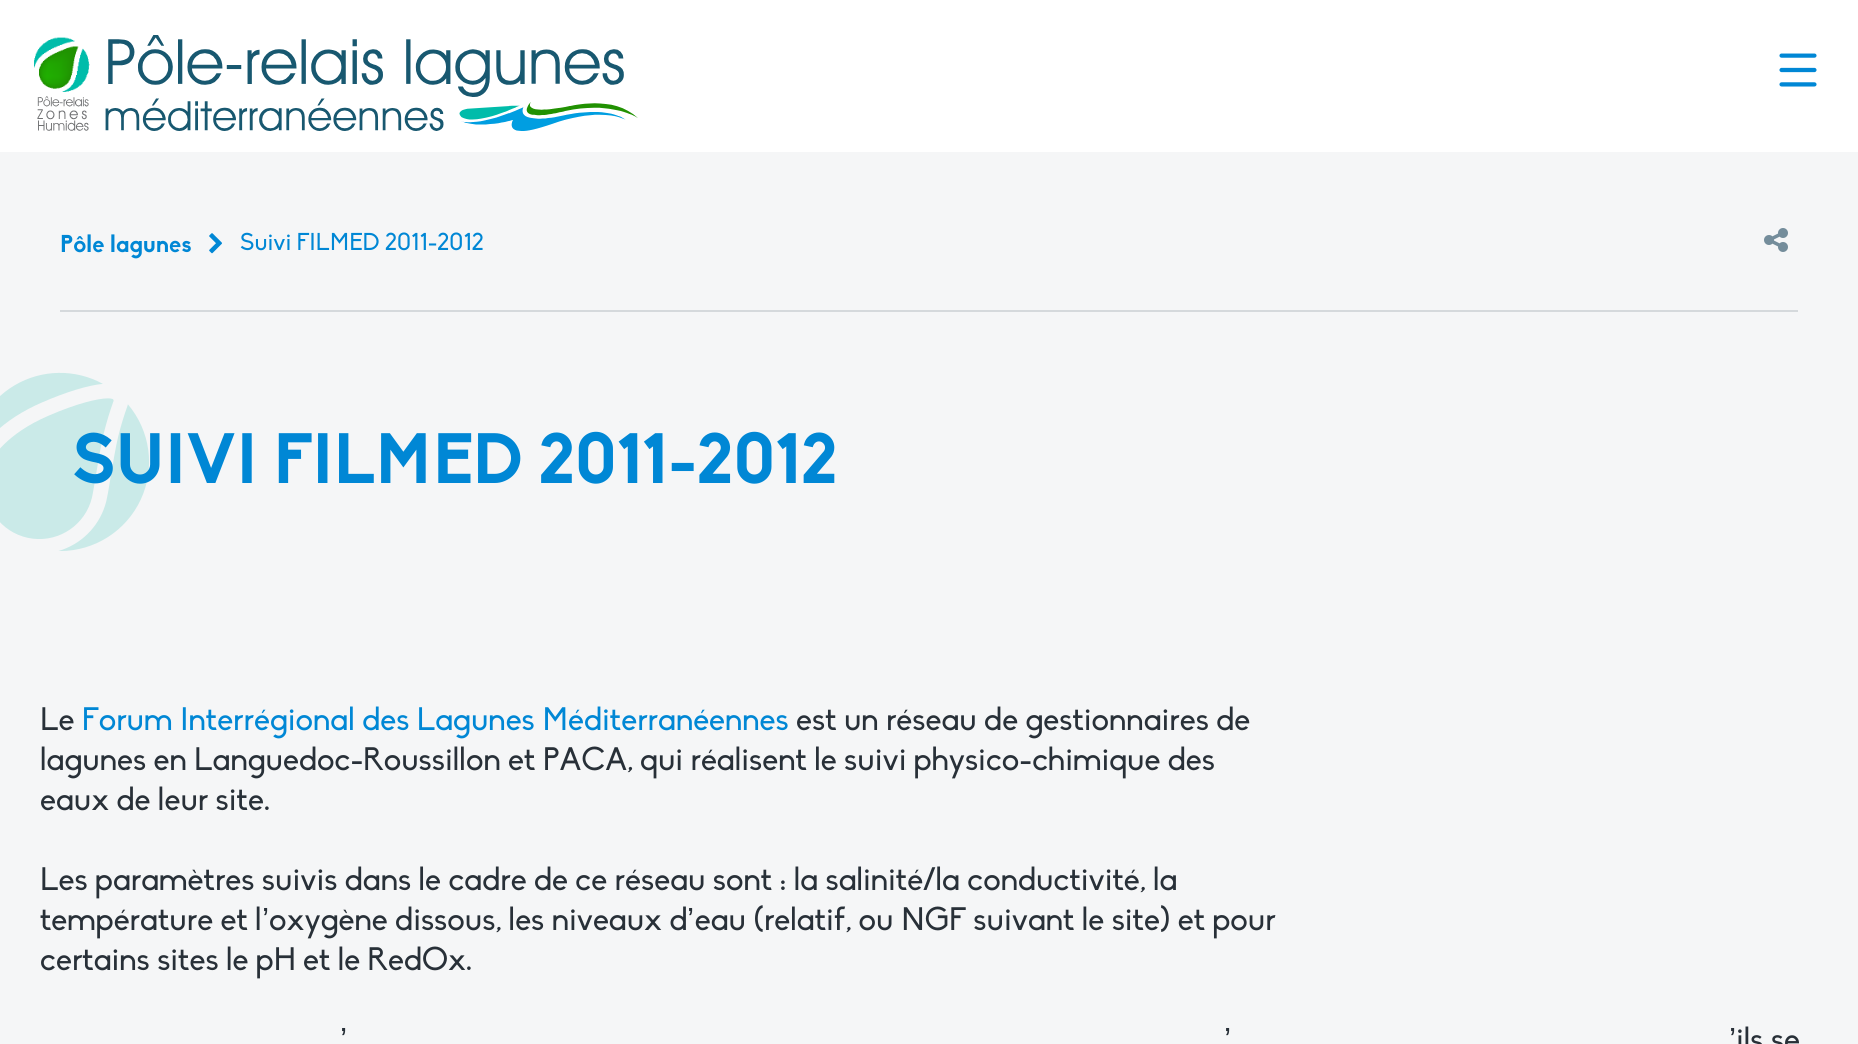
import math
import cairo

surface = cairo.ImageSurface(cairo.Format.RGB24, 1858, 1044)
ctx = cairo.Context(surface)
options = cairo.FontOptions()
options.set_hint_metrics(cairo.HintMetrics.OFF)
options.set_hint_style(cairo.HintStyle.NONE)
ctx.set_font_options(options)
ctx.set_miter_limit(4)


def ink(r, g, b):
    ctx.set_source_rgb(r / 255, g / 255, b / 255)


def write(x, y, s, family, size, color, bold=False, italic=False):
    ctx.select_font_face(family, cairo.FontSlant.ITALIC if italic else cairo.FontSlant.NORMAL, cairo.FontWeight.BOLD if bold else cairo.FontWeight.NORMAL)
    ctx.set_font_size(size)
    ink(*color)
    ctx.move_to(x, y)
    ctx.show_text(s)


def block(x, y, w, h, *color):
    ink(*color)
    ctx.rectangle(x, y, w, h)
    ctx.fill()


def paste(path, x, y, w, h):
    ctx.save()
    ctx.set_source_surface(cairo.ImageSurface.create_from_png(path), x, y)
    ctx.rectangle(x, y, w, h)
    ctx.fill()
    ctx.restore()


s1 = dict(family="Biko", size=24, color=(0, 135, 213), bold=True)
s2 = dict(family="Biko", size=24, color=(0, 135, 213))
s3 = dict(family="Biko", size=70, color=(0, 135, 213), bold=True)
s4 = dict(family="Biko", size=32, color=(40, 48, 56))
s5 = dict(family="Biko", size=32, color=(0, 135, 213))
s6 = dict(family="Liberation Sans", size=32, color=(40, 48, 56))

ink(245, 246, 247)
ctx.paint()
block(0, 0, 1858, 152, 255, 255, 255)
paste("pic1.png", 34, 35, 604, 96)
paste("pic2.png", 1779, 53, 38, 34)
write(60, 252, "Pôle lagunes", **s1)
paste("pic3.png", 209, 233, 13, 21)
write(240, 250, "Suivi FILMED 2011-2012", **s2)
paste("pic4.png", 1764, 228, 24, 24)
block(60, 310, 1738, 2, 213, 217, 220)
paste("pic5.png", 0, 372, 149, 179)
write(72, 483, "SUIVI FILMED 2011-2012", **s3)
write(40, 730, "Le", **s4)
write(82, 730, "Forum Interrégional des Lagunes Méditerranéennes", **s5)
write(796, 730, "est un réseau de gestionnaires de", **s4)
write(40, 770, "lagunes en Languedoc-Roussillon et PACA, qui réalisent le suivi physico-chimique des", **s4)
write(40, 810, "eaux de leur site.", **s4)
write(40, 890, "Les paramètres suivis dans le cadre de ce réseau sont : la salinité/la conductivité, la", **s4)
write(40, 930, "température et l oxygène dissous, les niveaux d eau (relatif, ou NGF suivant le site) et pour", **s4)
write(262, 930, "’", **s6)
write(687, 930, "’", **s6)
write(40, 970, "certains sites le pH et le RedOx.", **s4)
write(340, 1050, "’", **s6)
write(1224, 1050, "’", **s6)
write(1729, 1050, "’", **s6)
write(1736, 1050, "ils se", **s4)
surface.write_to_png("screenshot.png")
